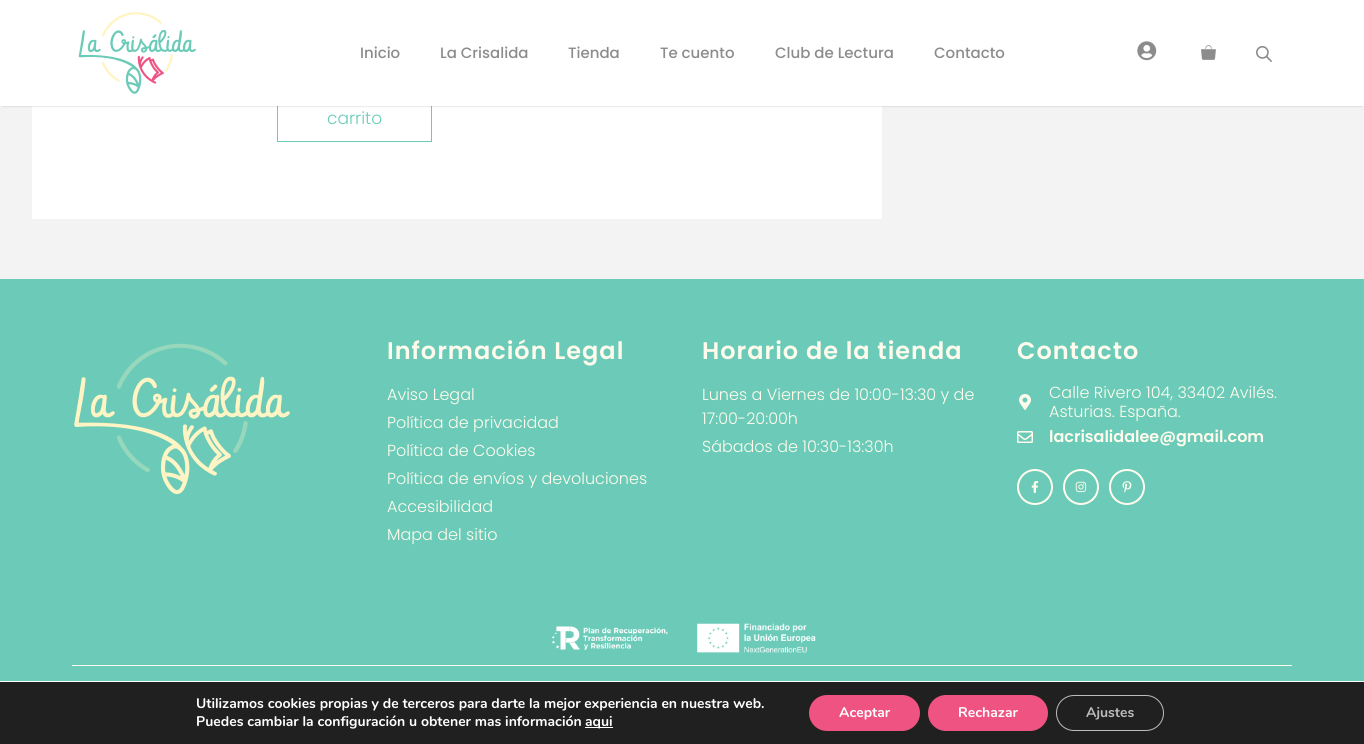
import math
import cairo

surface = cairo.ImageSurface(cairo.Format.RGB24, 1364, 744)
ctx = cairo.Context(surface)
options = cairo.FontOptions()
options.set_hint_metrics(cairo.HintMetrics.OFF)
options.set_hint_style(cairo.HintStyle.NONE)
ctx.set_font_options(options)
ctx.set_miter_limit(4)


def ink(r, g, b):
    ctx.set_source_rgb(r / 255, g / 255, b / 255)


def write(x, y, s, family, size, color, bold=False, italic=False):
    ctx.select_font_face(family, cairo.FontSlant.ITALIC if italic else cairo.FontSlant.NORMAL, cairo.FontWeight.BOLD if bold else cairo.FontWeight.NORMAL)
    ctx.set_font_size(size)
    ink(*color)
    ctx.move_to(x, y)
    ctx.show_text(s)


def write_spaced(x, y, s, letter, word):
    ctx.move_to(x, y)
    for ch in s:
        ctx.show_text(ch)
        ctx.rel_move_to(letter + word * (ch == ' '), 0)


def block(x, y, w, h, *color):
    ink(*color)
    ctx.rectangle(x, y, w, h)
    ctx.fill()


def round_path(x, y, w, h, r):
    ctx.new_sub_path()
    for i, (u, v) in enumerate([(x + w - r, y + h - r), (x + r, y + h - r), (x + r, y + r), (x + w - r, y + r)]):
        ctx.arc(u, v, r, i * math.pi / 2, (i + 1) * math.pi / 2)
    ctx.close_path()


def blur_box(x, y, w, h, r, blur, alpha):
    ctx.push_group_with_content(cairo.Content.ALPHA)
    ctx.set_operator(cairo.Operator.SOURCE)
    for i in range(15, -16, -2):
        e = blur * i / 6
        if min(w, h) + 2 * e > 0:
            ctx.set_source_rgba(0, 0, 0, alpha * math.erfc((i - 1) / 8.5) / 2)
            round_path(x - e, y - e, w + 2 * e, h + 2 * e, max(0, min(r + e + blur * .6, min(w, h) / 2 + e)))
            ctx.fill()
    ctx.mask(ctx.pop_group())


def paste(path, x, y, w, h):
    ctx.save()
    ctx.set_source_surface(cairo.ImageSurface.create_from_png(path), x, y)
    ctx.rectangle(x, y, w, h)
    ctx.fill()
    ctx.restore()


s1 = dict(family="Poppins Medium", size=15, color=(140, 140, 140))
s2 = dict(family="Poppins Light", size=17, color=(107, 203, 184))
s3 = dict(family="Poppins Light", size=16, color=(255, 251, 236))
s4 = dict(family="Poppins SemiBold", size=16, color=(255, 251, 236))
s5 = dict(family="Nunito", size=14, color=(255, 255, 255), bold=True)
s6 = dict(family="Nunito", size=14, color=(188, 188, 188), bold=True)

ink(243, 243, 243)
ctx.paint()
block(32, 106, 850, 113, 255, 255, 255)
ctx.rectangle(277.5, 69.5, 154, 72)
ink(107, 203, 184)
ctx.set_line_width(1)
ctx.stroke()
ink(0, 0, 0)
blur_box(2, 4, 1360, 102, 0, 1, 0.2)
block(0, 0, 1364, 106, 255, 255, 255)
paste("pic1.png", 78, 12, 118, 82)
write(360, 58, "Inicio", **s1)
write(440, 58, "La Crisalida", **s1)
write(568, 58, "Tienda", **s1)
write(660, 58, "Te cuento", **s1)
write(775, 58, "Club de Lectura", **s1)
write(934, 58, "Contacto", **s1)
paste("pic2.png", 1137, 41, 20, 20)
paste("pic3.png", 1201, 45, 15, 15)
paste("pic4.png", 1256, 46, 16, 16)
write(327, 124, "carrito", **s2)
block(0, 279, 1364, 402, 107, 203, 184)
paste("pic5.png", 74, 343, 216, 152)
ctx.select_font_face("Poppins SemiBold")
ctx.set_font_size(24)
ink(255, 251, 236)
write_spaced(387, 359, "Información Legal", 1, 0)
write(387, 400, "Aviso Legal", **s3)
write(387, 428, "Política de privacidad", **s3)
write(387, 456, "Política de Cookies", **s3)
write(387, 484, "Política de envíos y devoluciones", **s3)
write(387, 512, "Accesibilidad", **s3)
write(387, 540, "Mapa del sitio", **s3)
ctx.select_font_face("Poppins SemiBold")
ctx.set_font_size(24)
write_spaced(702, 359, "Horario de la tienda", 1, 0)
write(702, 400, "Lunes a Viernes de 10:00-13:30 y de", **s3)
write(702, 424, "17:00-20:00h", **s3)
write(702, 452, "Sábados de 10:30-13:30h", **s3)
ctx.select_font_face("Poppins SemiBold")
ctx.set_font_size(24)
write_spaced(1017, 359, "Contacto", 1, 0)
paste("pic6.png", 1019, 394, 12, 16)
write(1049, 398, "Calle Rivero 104, 33402 Avilés.", **s3)
write(1049, 417, "Asturias. España.", **s3)
paste("pic7.png", 1017, 431, 16, 12)
write(1049, 442, "lacrisalidalee@gmail.com", **s4)
ctx.new_path()
ctx.arc(1035, 487, 17, 0, 2 * math.pi)
ctx.set_line_width(2)
ctx.stroke()
paste("pic8.png", 1031, 481, 8, 12)
ctx.arc(1081, 487, 17, 0, 2 * math.pi)
ctx.stroke()
paste("pic9.png", 1075, 481, 12, 12)
ctx.arc(1127, 487, 17, 0, 2 * math.pi)
ctx.stroke()
paste("pic10.png", 1122, 481, 10, 12)
paste("pic11.png", 551, 626, 117, 24)
paste("pic12.png", 697, 623, 119, 30)
block(72, 665, 1220, 1, 255, 251, 236)
block(0, 682, 1364, 62, 32, 32, 32)
block(0, 681, 1364, 1, 255, 255, 255)
write(196, 708, "Utilizamos cookies propias y de terceros para darte la mejor experiencia en nuestra web.", **s5)
write(196, 726, "Puedes cambiar la configuración u obtener mas información", **s5)
block(585, 727, 28, 1, 255, 255, 255)
write(585, 726, "aqui", **s5)
ink(238, 83, 130)
round_path(809, 695, 111, 36, 18)
ctx.fill()
write(839, 717, "Aceptar", **s5)
ink(238, 83, 130)
round_path(928, 695, 120, 36, 18)
ctx.fill()
write(958, 717, "Rechazar", **s5)
round_path(1056.5, 695.5, 107, 35, 17.5)
ink(188, 188, 188)
ctx.set_line_width(1)
ctx.stroke()
write(1086, 717, "Ajustes", **s6)
surface.write_to_png("screenshot.png")
